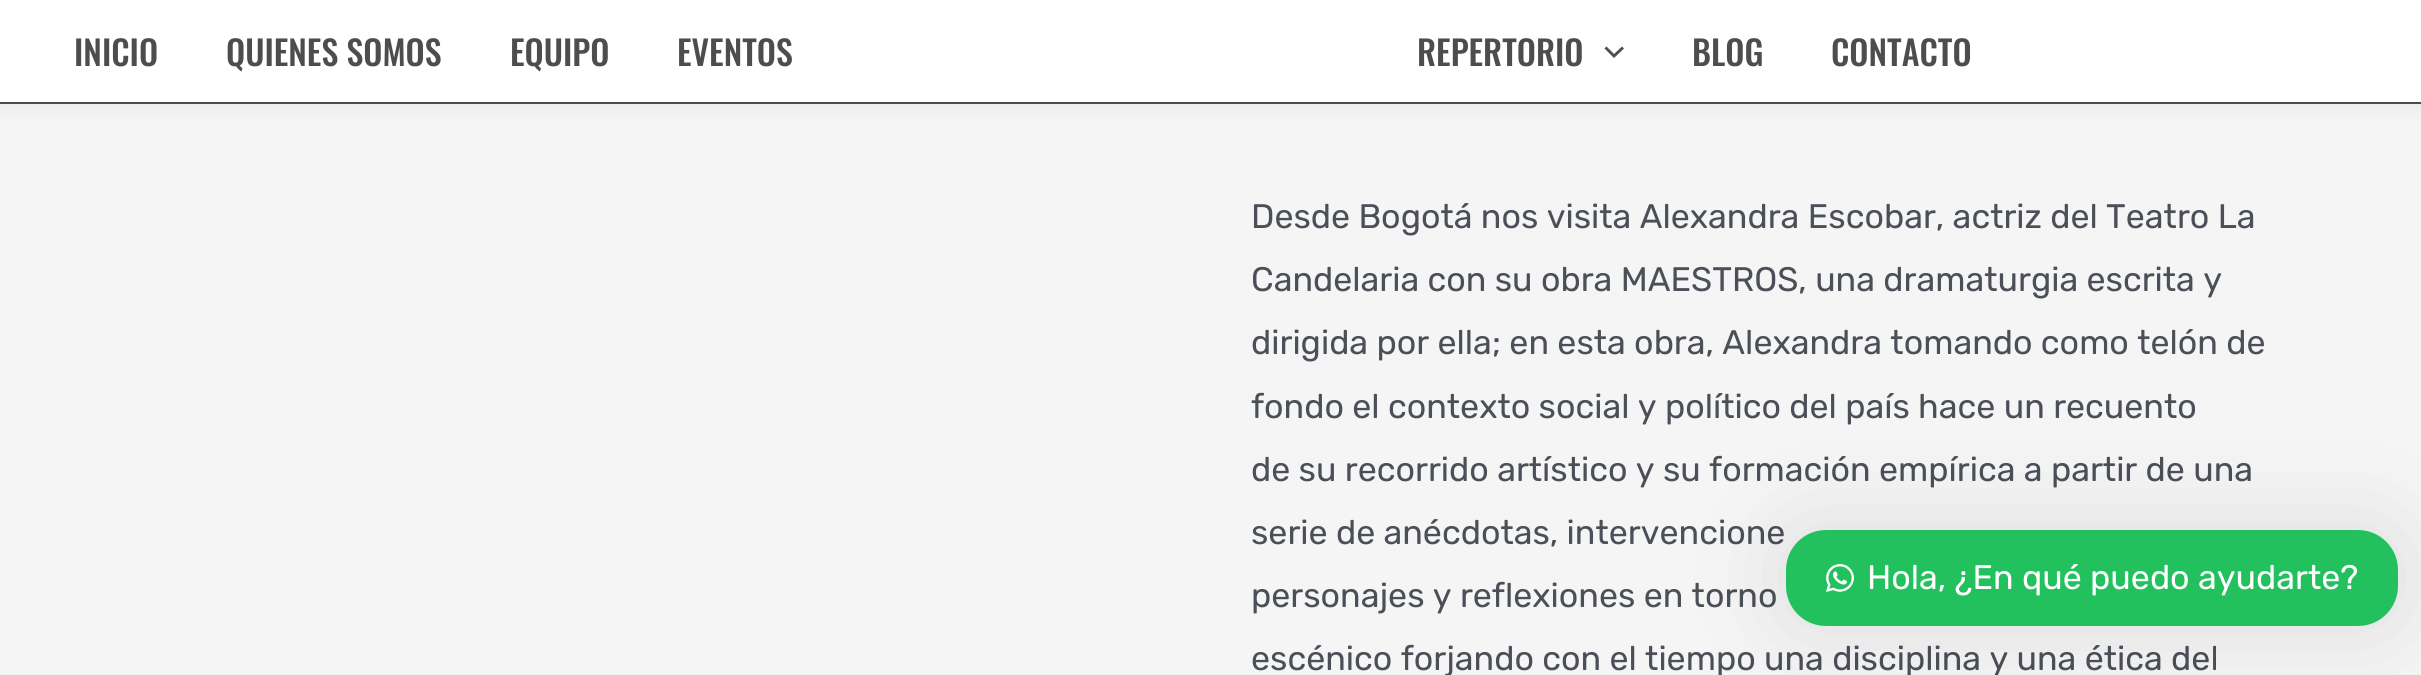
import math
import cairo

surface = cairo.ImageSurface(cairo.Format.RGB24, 2421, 675)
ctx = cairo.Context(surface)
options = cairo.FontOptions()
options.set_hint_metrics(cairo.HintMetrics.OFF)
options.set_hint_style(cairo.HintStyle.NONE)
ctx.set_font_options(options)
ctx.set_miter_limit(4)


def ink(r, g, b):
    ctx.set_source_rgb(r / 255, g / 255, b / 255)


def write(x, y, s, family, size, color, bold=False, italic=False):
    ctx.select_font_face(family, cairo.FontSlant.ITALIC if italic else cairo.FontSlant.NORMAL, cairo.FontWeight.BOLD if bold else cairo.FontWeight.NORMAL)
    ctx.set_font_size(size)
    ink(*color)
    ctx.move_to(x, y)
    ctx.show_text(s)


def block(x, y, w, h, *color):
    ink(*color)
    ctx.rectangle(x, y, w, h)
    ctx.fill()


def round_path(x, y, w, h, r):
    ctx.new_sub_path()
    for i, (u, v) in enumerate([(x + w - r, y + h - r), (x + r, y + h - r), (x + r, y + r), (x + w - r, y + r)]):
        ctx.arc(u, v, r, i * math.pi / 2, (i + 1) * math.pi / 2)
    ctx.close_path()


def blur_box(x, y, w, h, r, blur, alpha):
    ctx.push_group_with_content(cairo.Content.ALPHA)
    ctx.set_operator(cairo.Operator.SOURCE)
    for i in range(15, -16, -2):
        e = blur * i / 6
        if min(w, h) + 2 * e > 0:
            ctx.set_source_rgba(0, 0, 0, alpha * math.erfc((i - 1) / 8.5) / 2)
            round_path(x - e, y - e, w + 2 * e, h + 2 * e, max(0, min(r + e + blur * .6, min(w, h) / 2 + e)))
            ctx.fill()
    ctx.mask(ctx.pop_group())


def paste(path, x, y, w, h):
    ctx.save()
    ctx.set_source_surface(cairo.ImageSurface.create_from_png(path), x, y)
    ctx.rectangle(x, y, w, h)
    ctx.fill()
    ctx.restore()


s1 = dict(family="Oswald Medium", size=34, color=(76, 77, 79))
s2 = dict(family="Rubik Light", size=34, color=(75, 79, 88))
s3 = dict(family="Rubik Light", size=34, color=(255, 255, 255))

ink(245, 245, 245)
ctx.paint()
ink(36, 50, 66)
blur_box(0, 4, 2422, 104, 0, 10, 0.07)
block(0, 0, 2421, 102, 255, 255, 255)
block(0, 102, 2421, 2, 76, 77, 79)
write(74, 66, "INICIO", **s1)
write(226, 66, "QUIENES SOMOS", **s1)
write(510, 66, "EQUIPO", **s1)
write(677, 66, "EVENTOS", **s1)
write(1417, 66, "REPERTORIO", **s1)
ctx.new_path()
ctx.move_to(1604.5, 48.5)
ctx.line_to(1614, 58)
ctx.line_to(1624, 48.5)
ctx.line_to(1622, 46.5)
ctx.line_to(1614, 54)
ctx.line_to(1606.5, 46.5)
ctx.close_path()
ctx.fill()
write(1692, 66, "BLOG", **s1)
write(1831, 66, "CONTACTO", **s1)
write(1251, 228, "Desde Bogotá nos visita Alexandra Escobar, actriz del Teatro La", **s2)
write(1251, 291, "Candelaria con su obra MAESTROS, una dramaturgia escrita y", **s2)
write(1251, 354, "dirigida por ella; en esta obra, Alexandra tomando como telón de", **s2)
write(1251, 418, "fondo el contexto social y político del país hace un recuento", **s2)
write(1251, 481, "de su recorrido artístico y su formación empírica a partir de una", **s2)
write(1251, 544, "serie de anécdotas, intervencione", **s2)
write(1251, 607, "personajes y reflexiones en torno", **s2)
write(1251, 670, "escénico forjando con el tiempo una disciplina y una ética del", **s2)
ink(0, 0, 0)
blur_box(1786, 530, 612, 96, 40, 50, 0.1)
ink(34, 193, 94)
round_path(1786, 530, 612, 96, 40)
ctx.fill()
paste("pic1.png", 1826, 564, 28, 28)
write(1867, 589, "Hola, ¿En qué puedo ayudarte?", **s3)
surface.write_to_png("screenshot.png")
